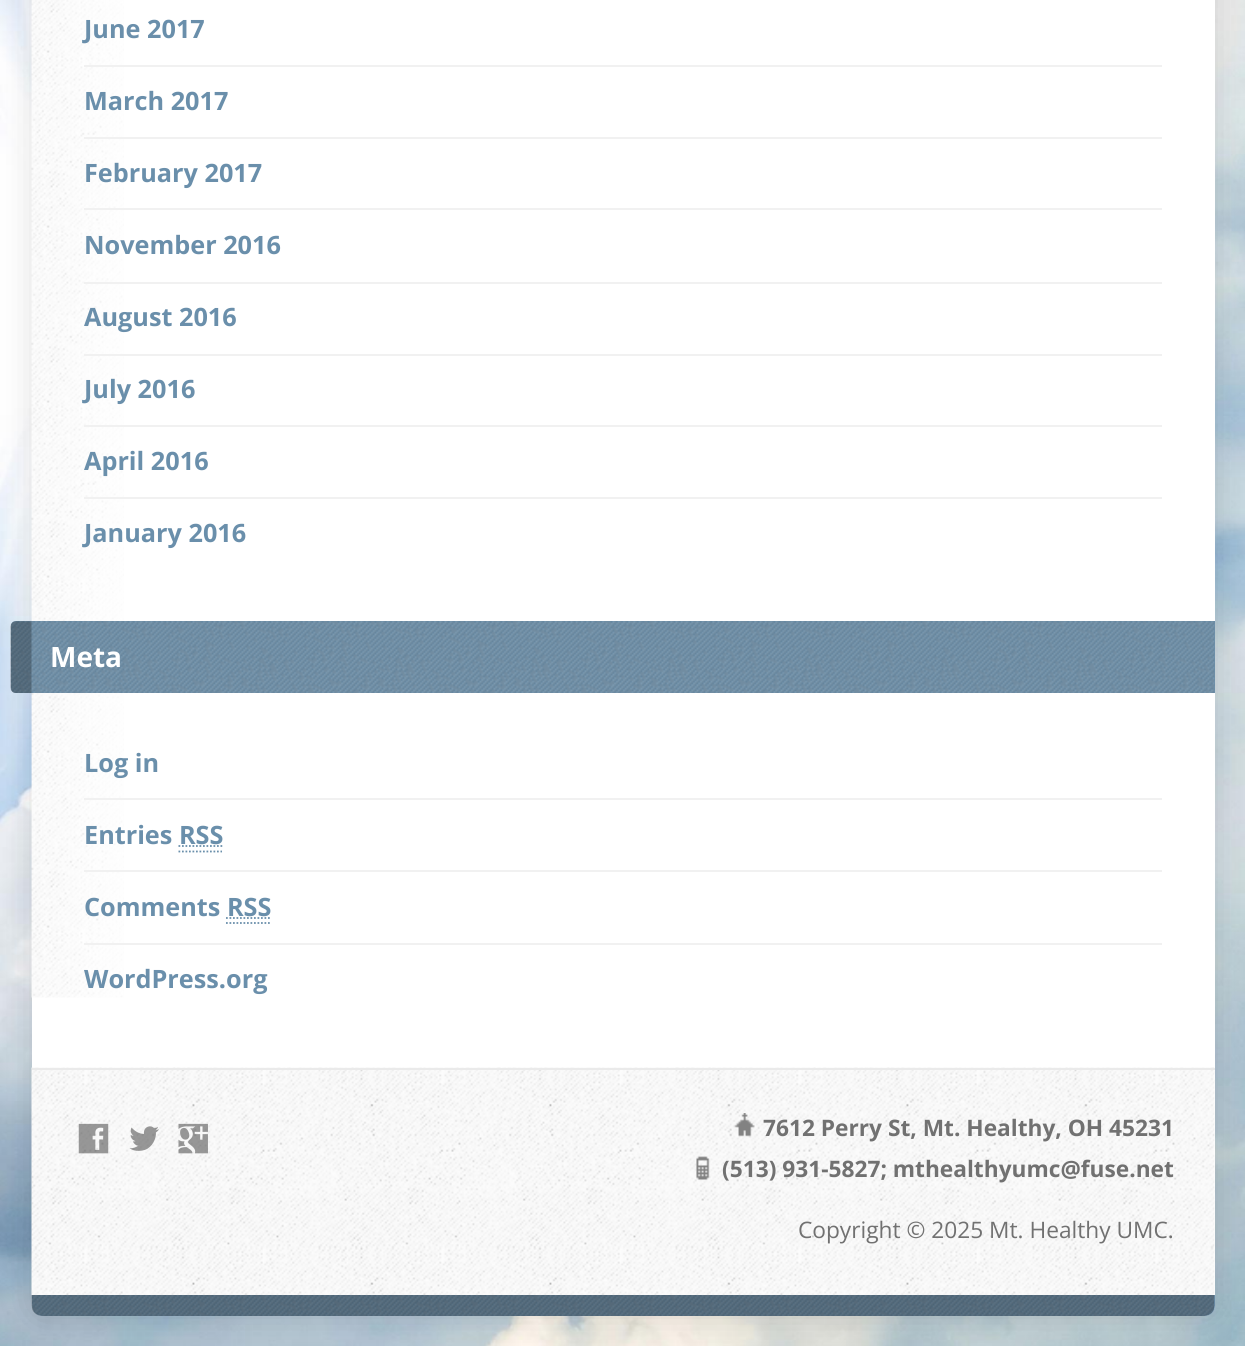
import math
import cairo

surface = cairo.ImageSurface(cairo.Format.RGB24, 1245, 1346)
ctx = cairo.Context(surface)
options = cairo.FontOptions()
options.set_hint_metrics(cairo.HintMetrics.OFF)
options.set_hint_style(cairo.HintStyle.NONE)
ctx.set_font_options(options)
ctx.set_miter_limit(4)


def ink(r, g, b):
    ctx.set_source_rgb(r / 255, g / 255, b / 255)


def write(x, y, s, family, size, color, bold=False, italic=False):
    ctx.select_font_face(family, cairo.FontSlant.ITALIC if italic else cairo.FontSlant.NORMAL, cairo.FontWeight.BOLD if bold else cairo.FontWeight.NORMAL)
    ctx.set_font_size(size)
    ink(*color)
    ctx.move_to(x, y)
    ctx.show_text(s)


def block(x, y, w, h, *color):
    ink(*color)
    ctx.rectangle(x, y, w, h)
    ctx.fill()


def round_path(x, y, w, h, r):
    ctx.new_sub_path()
    for i, (u, v) in enumerate([(x + w - r, y + h - r), (x + r, y + h - r), (x + r, y + r), (x + w - r, y + r)]):
        ctx.arc(u, v, r, i * math.pi / 2, (i + 1) * math.pi / 2)
    ctx.close_path()


def blur_box(x, y, w, h, r, blur, alpha):
    ctx.push_group_with_content(cairo.Content.ALPHA)
    ctx.set_operator(cairo.Operator.SOURCE)
    for i in range(15, -16, -2):
        e = blur * i / 6
        if min(w, h) + 2 * e > 0:
            ctx.set_source_rgba(0, 0, 0, alpha * math.erfc((i - 1) / 8.5) / 2)
            round_path(x - e, y - e, w + 2 * e, h + 2 * e, max(0, min(r + e + blur * .6, min(w, h) / 2 + e)))
            ctx.fill()
    ctx.mask(ctx.pop_group())


def paste(path, x, y, w, h):
    ctx.save()
    ctx.set_source_surface(cairo.ImageSurface.create_from_png(path), x, y)
    ctx.rectangle(x, y, w, h)
    ctx.fill()
    ctx.restore()


s1 = dict(family="Open Sans", size=25.25, color=(106, 143, 171), bold=True)
s2 = dict(family="Open Sans", size=28, color=(255, 255, 255), bold=True)
s3 = dict(family="Open Sans", size=22.7, color=(113, 113, 113), bold=True)
s4 = dict(family="Open Sans", size=22.7, color=(113, 113, 113))

ink(255, 255, 255)
ctx.paint()
paste("pic1.png", 0, 0, 1245, 1346)
ink(0, 0, 0)
blur_box(32, -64, 1183, 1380, 11, 17.5, 0.12)
ink(255, 255, 255)
round_path(32, -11, 1183, 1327, 11)
ctx.fill()
paste("pic2.png", 31, 0, 93, 998)
write(84, 38, "June 2017", **s1)
block(84, 65, 1078, 2, 241, 241, 241)
write(84, 110, "March 2017", **s1)
block(84, 137, 1078, 2, 241, 241, 241)
write(84, 182, "February 2017", **s1)
block(84, 208, 1078, 2, 241, 241, 241)
write(84, 254, "November 2016", **s1)
block(84, 282, 1078, 2, 241, 241, 241)
write(84, 326, "August 2016", **s1)
block(84, 354, 1078, 2, 241, 241, 241)
write(84, 398, "July 2016", **s1)
block(84, 425, 1078, 2, 241, 241, 241)
write(84, 470, "April 2016", **s1)
block(84, 497, 1078, 2, 241, 241, 241)
write(84, 542, "January 2016", **s1)
ctx.new_path()
ctx.move_to(16, 621)
ctx.line_to(1215, 621)
ctx.line_to(1215, 693)
ctx.line_to(16, 693)
ctx.curve_to(13, 693, 11, 691, 11, 688)
ctx.line_to(11, 626)
ctx.curve_to(11, 623, 13, 621, 16, 621)
ctx.close_path()
ctx.fill()
paste("pic3.png", 10, 621, 1205, 72)
write(50, 667, "Meta", **s2)
write(84, 772, "Log in", **s1)
block(84, 798, 1078, 2, 241, 241, 241)
write(84, 844, "Entries RSS", **s1)
ctx.new_path()
ctx.move_to(178.5, 851.5)
ctx.line_to(222, 851.5)
ctx.move_to(178.5, 846)
ctx.line_to(222.5, 846)
ctx.set_line_width(1.8)
ctx.set_dash([1.75, 1.75])
ctx.stroke()
block(84, 870, 1078, 2, 241, 241, 241)
write(84, 916, "Comments RSS", **s1)
ctx.new_path()
ctx.move_to(226, 923)
ctx.line_to(271, 923)
ctx.move_to(226, 918)
ctx.line_to(270.5, 918)
ctx.stroke()
block(84, 943, 1078, 2, 241, 241, 241)
write(84, 988, "WordPress.org", **s1)
paste("pic4.png", 31, 1067, 1184, 228)
block(32, 1068, 1183, 2, 234, 234, 234)
paste("pic5.png", 78, 1123, 31, 31)
paste("pic6.png", 129, 1126, 30, 25)
paste("pic7.png", 178, 1123, 30, 31)
paste("pic8.png", 734, 1113, 21, 24)
write(763, 1136, "7612 Perry St, Mt. Healthy, OH 45231", **s3)
paste("pic9.png", 696, 1156, 14, 24)
write(722, 1177, "(513) 931-5827; mthealthyumc@fuse.net", **s3)
write(798, 1238, "Copyright © 2025 Mt. Healthy UMC.", **s4)
ink(106, 143, 171)
ctx.new_path()
ctx.move_to(32, 1295)
ctx.line_to(1215, 1295)
ctx.line_to(1215, 1305.5)
ctx.curve_to(1215, 1311.5, 1210.5, 1316, 1204.5, 1316)
ctx.line_to(42.5, 1316)
ctx.curve_to(36.5, 1316, 32, 1311.5, 32, 1305.5)
ctx.close_path()
ctx.fill()
paste("pic10.png", 31, 1295, 1184, 21)
surface.write_to_png("screenshot.png")
